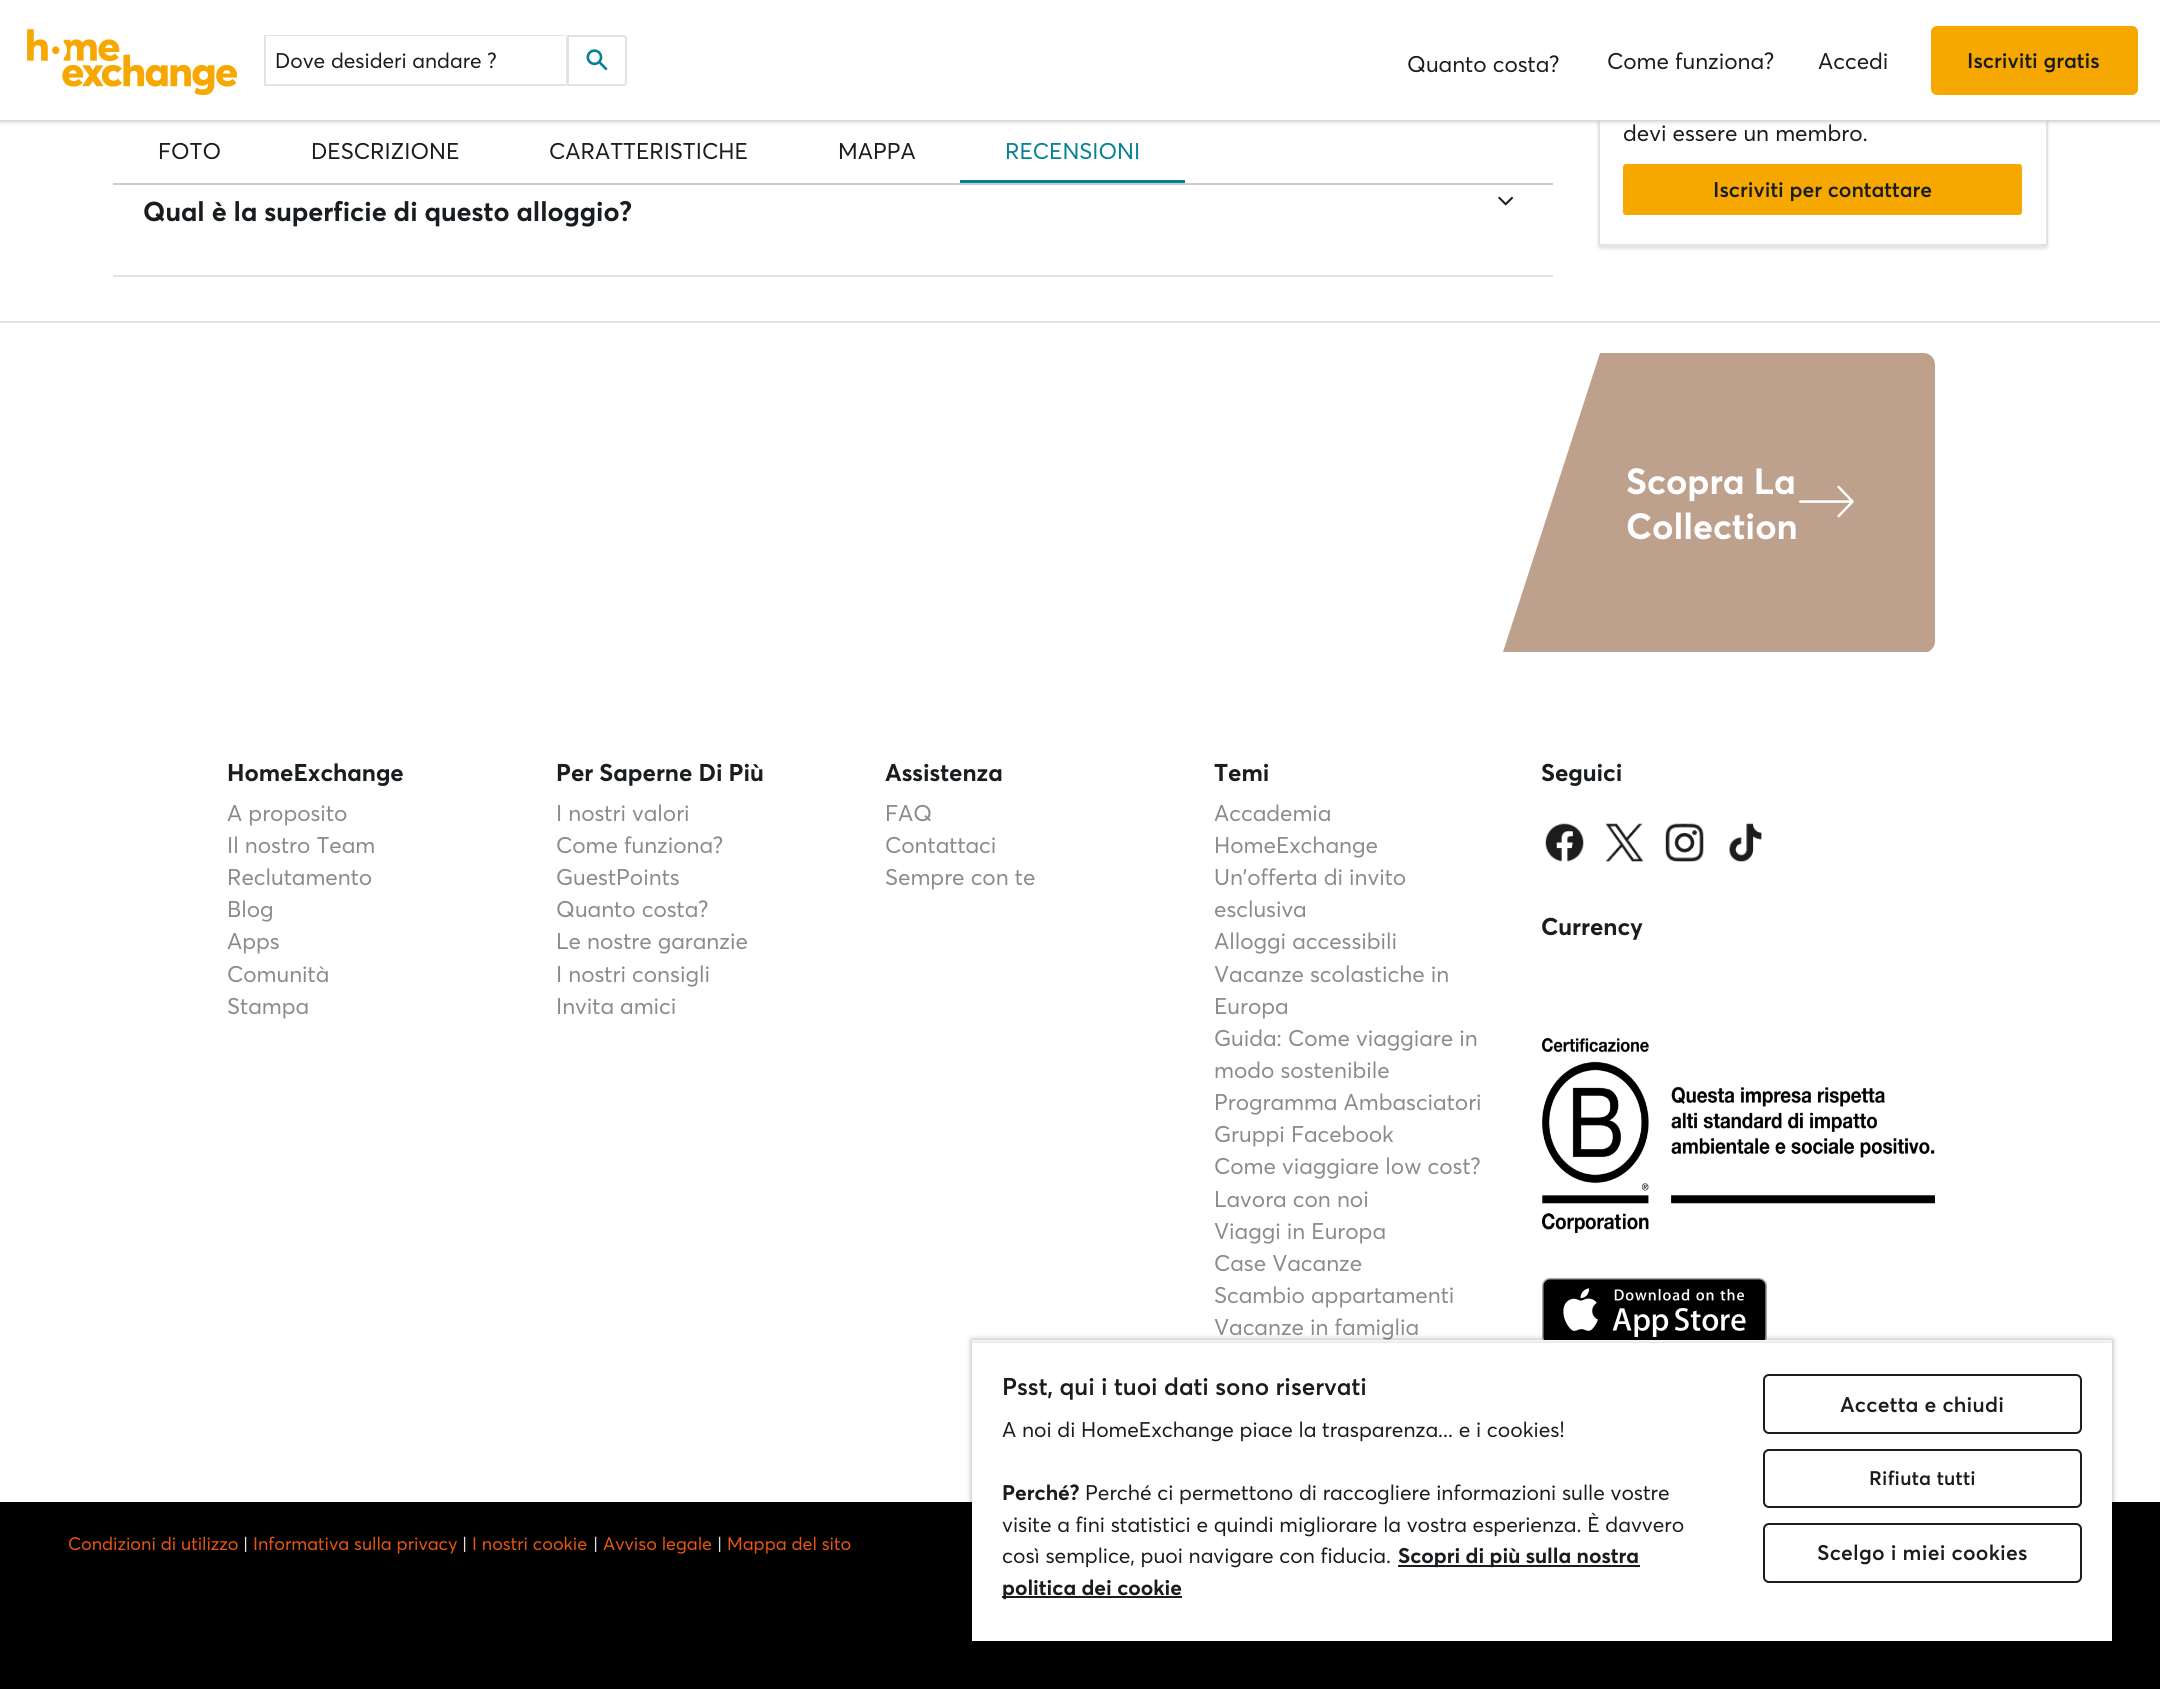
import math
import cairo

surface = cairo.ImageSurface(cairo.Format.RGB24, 2160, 1689)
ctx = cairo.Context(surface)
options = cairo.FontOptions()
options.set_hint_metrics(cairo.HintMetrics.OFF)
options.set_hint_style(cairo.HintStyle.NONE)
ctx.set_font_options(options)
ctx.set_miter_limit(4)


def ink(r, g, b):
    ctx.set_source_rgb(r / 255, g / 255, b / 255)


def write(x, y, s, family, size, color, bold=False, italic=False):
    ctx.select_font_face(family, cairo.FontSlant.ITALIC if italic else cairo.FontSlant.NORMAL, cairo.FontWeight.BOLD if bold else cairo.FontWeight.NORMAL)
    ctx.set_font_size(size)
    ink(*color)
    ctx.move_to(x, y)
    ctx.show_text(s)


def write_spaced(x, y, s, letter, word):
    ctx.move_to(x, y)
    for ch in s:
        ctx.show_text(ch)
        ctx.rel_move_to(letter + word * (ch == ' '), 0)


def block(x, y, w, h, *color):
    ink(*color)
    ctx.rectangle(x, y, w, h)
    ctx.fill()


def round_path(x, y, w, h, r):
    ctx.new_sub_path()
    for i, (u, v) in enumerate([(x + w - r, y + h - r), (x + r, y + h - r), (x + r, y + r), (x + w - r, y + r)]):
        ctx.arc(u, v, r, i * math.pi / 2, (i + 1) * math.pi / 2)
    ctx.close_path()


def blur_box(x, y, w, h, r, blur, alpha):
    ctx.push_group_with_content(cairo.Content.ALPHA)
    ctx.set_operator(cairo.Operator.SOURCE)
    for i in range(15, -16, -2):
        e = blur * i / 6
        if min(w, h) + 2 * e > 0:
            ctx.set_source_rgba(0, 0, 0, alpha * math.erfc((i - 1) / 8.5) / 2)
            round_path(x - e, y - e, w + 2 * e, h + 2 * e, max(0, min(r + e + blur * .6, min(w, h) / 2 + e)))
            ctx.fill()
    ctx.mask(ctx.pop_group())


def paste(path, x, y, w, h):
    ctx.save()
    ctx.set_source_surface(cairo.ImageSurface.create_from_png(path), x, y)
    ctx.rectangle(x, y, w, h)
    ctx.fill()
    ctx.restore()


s1 = dict(family="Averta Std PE", size=21, color=(25, 29, 31))
s2 = dict(family="Averta Std PE", size=22.5, color=(25, 29, 31))
s3 = dict(family="Averta Std PE SemiBold", size=21, color=(25, 29, 31))
s4 = dict(family="Averta Std PE", size=22.5, color=(6, 130, 149))
s5 = dict(family="Averta Std PE", size=27, color=(25, 29, 31), bold=True)
s6 = dict(family="Averta Std PE", size=36, color=(255, 255, 255), bold=True)
s7 = dict(family="Averta Std PE", size=24, color=(25, 29, 31), bold=True)
s8 = dict(family="Averta Std PE", size=22.5, color=(139, 139, 139))
s9 = dict(family="Averta Std PE", size=18, color=(232, 87, 16))
s10 = dict(family="Averta Std PE", size=18, color=(227, 227, 227))
s11 = dict(family="Averta Std PE SemiBold", size=24, color=(25, 29, 31))
s12 = dict(family="Averta Std PE", size=21, color=(25, 29, 31), bold=True)

ink(255, 255, 255)
ctx.paint()
ink(227, 227, 227)
blur_box(1598, -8, 450, 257, 3, 1.5, 1)
ink(255, 255, 255)
round_path(1599, -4, 448, 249, 2)
ctx.fill_preserve()
ink(227, 227, 227)
ctx.stroke()
ink(205, 205, 205)
blur_box(0, 2, 2160, 120, 0, 2, 1)
block(0, 0, 2160, 120, 255, 255, 255)
paste("pic1.png", 27, 29, 211, 66)
ctx.new_path()
ctx.move_to(265, 36)
ctx.line_to(564, 36)
ctx.curve_to(565, 36, 566, 37, 566, 38)
ctx.line_to(566, 83)
ctx.curve_to(566, 84, 565, 85, 564, 85)
ctx.line_to(265, 85)
ctx.close_path()
ink(227, 227, 227)
ctx.stroke()
block(266, 36, 300, 48, 255, 255, 255)
write(275, 68, "Dove desideri andare ?", **s1)
ctx.new_path()
ctx.move_to(568, 36)
ctx.line_to(624, 36)
ctx.curve_to(625, 36, 626, 37, 626, 38)
ctx.line_to(626, 83)
ctx.curve_to(626, 84, 625, 85, 624, 85)
ctx.line_to(568, 85)
ctx.close_path()
ink(227, 227, 227)
ctx.stroke()
paste("pic2.png", 586, 49, 22, 21)
write(1407, 72, "Quanto costa?", **s2)
write(1607, 69, "Come funziona?", **s2)
write(1818, 69, "Accedi", **s2)
ink(247, 168, 0)
round_path(1932, 27, 205, 67, 5)
ctx.fill_preserve()
ctx.stroke()
write(1967, 68, "Iscriviti gratis", **s3)
block(113, 183, 1440, 2, 204, 204, 204)
write(158, 159, "FOTO", **s2)
write(311, 159, "DESCRIZIONE", **s2)
write(549, 159, "CARATTERISTICHE", **s2)
write(838, 159, "MAPPA", **s2)
block(960, 180, 225, 3, 6, 130, 149)
write(1005, 159, "RECENSIONI", **s4)
block(113, 275, 1440, 2, 227, 227, 227)
write(143, 221, "Qual è la superficie di questo alloggio?", **s5)
paste("pic3.png", 1498, 196, 16, 10)
write(1623, 141, "devi essere un membro.", **s2)
ink(247, 168, 0)
round_path(1624, 165, 397, 49, 2)
ctx.fill_preserve()
ctx.stroke()
write(1713, 197, "Iscriviti per contattare", **s3)
block(0, 321, 2160, 2, 227, 227, 227)
ink(190, 161, 141)
ctx.new_path()
ctx.move_to(1935, 641)
ctx.line_to(1935, 365)
ctx.curve_to(1935, 358, 1930, 353, 1923, 353)
ctx.line_to(1600, 353)
ctx.line_to(1503, 652)
ctx.line_to(1928, 652)
ctx.curve_to(1932, 650, 1935, 646, 1935, 641)
ctx.close_path()
ctx.fill()
write(1626, 494, "Scopra La", **s6)
write(1626, 539, "Collection", **s6)
paste("pic4.png", 1799, 485, 55, 33)
write(227, 781, "HomeExchange", **s7)
write(227, 821, "A proposito", **s8)
write(227, 853, "Il nostro Team", **s8)
write(227, 885, "Reclutamento", **s8)
write(227, 917, "Blog", **s8)
write(227, 949, "Apps", **s8)
write(227, 982, "Comunità", **s8)
write(227, 1014, "Stampa", **s8)
write(556, 781, "Per Saperne Di Più", **s7)
write(556, 821, "I nostri valori", **s8)
write(556, 853, "Come funziona?", **s8)
write(556, 885, "GuestPoints", **s8)
write(556, 917, "Quanto costa?", **s8)
write(556, 949, "Le nostre garanzie", **s8)
write(556, 982, "I nostri consigli", **s8)
write(556, 1014, "Invita amici", **s8)
write(885, 781, "Assistenza", **s7)
write(885, 821, "FAQ", **s8)
write(885, 853, "Contattaci", **s8)
write(885, 885, "Sempre con te", **s8)
write(1214, 781, "Temi", **s7)
write(1214, 821, "Accademia", **s8)
write(1214, 853, "HomeExchange", **s8)
write(1214, 885, "Un'offerta di invito", **s8)
write(1214, 917, "esclusiva", **s8)
write(1214, 949, "Alloggi accessibili", **s8)
write(1214, 982, "Vacanze scolastiche in", **s8)
write(1214, 1014, "Europa", **s8)
write(1214, 1046, "Guida: Come viaggiare in", **s8)
write(1214, 1078, "modo sostenibile", **s8)
write(1214, 1110, "Programma Ambasciatori", **s8)
write(1214, 1142, "Gruppi Facebook", **s8)
write(1214, 1174, "Come viaggiare low cost?", **s8)
write(1214, 1207, "Lavora con noi", **s8)
write(1214, 1239, "Viaggi in Europa", **s8)
write(1214, 1271, "Case Vacanze", **s8)
write(1214, 1303, "Scambio appartamenti", **s8)
write(1214, 1335, "Vacanze in famiglia", **s8)
write(1541, 781, "Seguici", **s7)
paste("pic5.png", 1545, 823, 39, 39)
paste("pic6.png", 1605, 823, 39, 39)
paste("pic7.png", 1665, 823, 39, 39)
paste("pic8.png", 1729, 823, 33, 39)
write(1541, 935, "Currency", **s7)
paste("pic9.png", 1542, 1038, 393, 195)
paste("pic10.png", 1542, 1278, 225, 62)
block(0, 1502, 2160, 187, 0, 0, 0)
write(68, 1550, "Condizioni di utilizzo", **s9)
write(243, 1550, "|", **s10)
write(253, 1550, "Informativa sulla privacy", **s9)
write(462, 1550, "|", **s10)
write(472, 1550, "I nostri cookie", **s9)
write(593, 1550, "|", **s10)
write(603, 1550, "Avviso legale", **s9)
write(717, 1550, "|", **s10)
write(727, 1550, "Mappa del sito", **s9)
ink(0, 0, 0)
blur_box(972, 1340, 1140, 301, 0, 3, 0.35)
block(972, 1340, 1140, 301, 255, 255, 255)
ctx.save()
ctx.rectangle(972, 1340, 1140, 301)
ctx.clip()
ctx.rectangle(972, 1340, 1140, 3)
ctx.clip()
ink(0, 0, 0)
blur_box(972, 1343, 1140, 298, 0, 3, 0.2)
ctx.restore()
write(1002, 1395, "Psst, qui i tuoi dati sono riservati", **s11)
write(1002, 1437, "A noi di HomeExchange piace la trasparenza... e i cookies!", **s1)
write(1002, 1500, "Perché?", **s12)
write(1085, 1500, "Perché ci permettono di raccogliere informazioni sulle vostre", **s1)
write(1002, 1532, "visite a fini statistici e quindi migliorare la vostra esperienza. È davvero", **s1)
write(1002, 1563, "così semplice, puoi navigare con fiducia.", **s1)
block(1398, 1565, 242, 2, 30, 29, 29)
write(1398, 1563, "Scopri di più sulla nostra", **s12)
block(1002, 1596, 180, 2, 30, 29, 29)
write(1002, 1595, "politica dei cookie", **s12)
round_path(1764, 1375, 317, 58, 5)
ink(30, 29, 29)
ctx.stroke()
ctx.select_font_face("Averta Std PE SemiBold")
ink(25, 29, 31)
write_spaced(1840, 1412, "Accetta e chiudi", 0.25, 0)
round_path(1764, 1450, 317, 57, 5)
ink(30, 29, 29)
ctx.stroke()
ctx.set_font_size(19.5)
ink(25, 29, 31)
write_spaced(1869, 1485, "Rifiuta tutti", 0.25, 0)
round_path(1764, 1524, 317, 58, 5)
ink(30, 29, 29)
ctx.stroke()
ctx.set_font_size(21)
ink(25, 29, 31)
write_spaced(1817, 1560, "Scelgo i miei cookies", 0.25, 0)
surface.write_to_png("screenshot.png")
